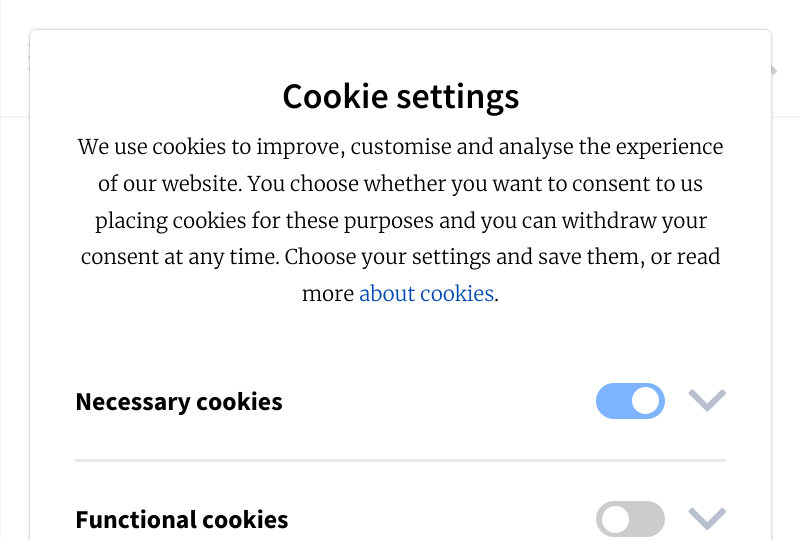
import math
import cairo

surface = cairo.ImageSurface(cairo.Format.RGB24, 800, 540)
ctx = cairo.Context(surface)
options = cairo.FontOptions()
options.set_hint_metrics(cairo.HintMetrics.OFF)
options.set_hint_style(cairo.HintStyle.NONE)
ctx.set_font_options(options)
ctx.set_miter_limit(4)


def ink(r, g, b):
    ctx.set_source_rgb(r / 255, g / 255, b / 255)


def write(x, y, s, family, size, color, bold=False, italic=False):
    ctx.select_font_face(family, cairo.FontSlant.ITALIC if italic else cairo.FontSlant.NORMAL, cairo.FontWeight.BOLD if bold else cairo.FontWeight.NORMAL)
    ctx.set_font_size(size)
    ink(*color)
    ctx.move_to(x, y)
    ctx.show_text(s)


def write_spaced(x, y, s, letter, word):
    ctx.move_to(x, y)
    for ch in s:
        ctx.show_text(ch)
        ctx.rel_move_to(letter + word * (ch == ' '), 0)


def block(x, y, w, h, *color):
    ink(*color)
    ctx.rectangle(x, y, w, h)
    ctx.fill()


def round_path(x, y, w, h, r):
    ctx.new_sub_path()
    for i, (u, v) in enumerate([(x + w - r, y + h - r), (x + r, y + h - r), (x + r, y + r), (x + w - r, y + r)]):
        ctx.arc(u, v, r, i * math.pi / 2, (i + 1) * math.pi / 2)
    ctx.close_path()


def blur_box(x, y, w, h, r, blur, alpha):
    ctx.push_group_with_content(cairo.Content.ALPHA)
    ctx.set_operator(cairo.Operator.SOURCE)
    for i in range(15, -16, -2):
        e = blur * i / 6
        if min(w, h) + 2 * e > 0:
            ctx.set_source_rgba(0, 0, 0, alpha * math.erfc((i - 1) / 8.5) / 2)
            round_path(x - e, y - e, w + 2 * e, h + 2 * e, max(0, min(r + e + blur * .6, min(w, h) / 2 + e)))
            ctx.fill()
    ctx.mask(ctx.pop_group())


def paste(path, x, y, w, h):
    ctx.save()
    ctx.set_source_surface(cairo.ImageSurface.create_from_png(path), x, y)
    ctx.rectangle(x, y, w, h)
    ctx.fill()
    ctx.restore()


s1 = dict(family="Source Sans Pro SemiBold", size=36, color=(0, 0, 0))
s2 = dict(family="Source Sans Pro", size=25.75, color=(0, 0, 0), bold=True)

ink(255, 255, 255)
ctx.paint()
block(0, 116, 800, 2, 244, 245, 247)
block(0, 0, 1, 540, 244, 245, 247)
ctx.new_path()
ctx.move_to(30, 45)
ctx.line_to(63, 45)
ctx.move_to(30, 57)
ctx.line_to(63, 57)
ctx.move_to(30, 69)
ctx.line_to(63, 69)
ink(198, 198, 198)
ctx.set_line_width(3)
ctx.set_line_cap(cairo.LineCap.ROUND)
ctx.stroke()
paste("pic1.png", 771, 64, 6, 11)
ink(170, 170, 170)
blur_box(30, 30, 741, 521, 6, 1.5, 1)
ink(255, 255, 255)
round_path(30, 30, 741, 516, 6)
ctx.fill()
write(282, 108, "Cookie settings", **s1)
ctx.select_font_face("Merriweather Light")
ctx.set_font_size(20.4)
write_spaced(78, 154, "We use cookies to improve, customise and analyse the experience", -0.05, 0)
write_spaced(98, 191, "of our website. You choose whether you want to consent to us", -0.05, 0)
write_spaced(95, 228, "placing cookies for these purposes and you can withdraw your", -0.05, 0)
write_spaced(81, 264, "consent at any time. Choose your settings and save them, or read", -0.05, 0)
write_spaced(302, 301, "more", -0.05, 0)
ink(0, 73, 176)
write_spaced(359, 301, "about cookies", -0.05, 0)
ink(0, 0, 0)
write_spaced(494, 301, ".", -0.05, 0)
block(75, 459, 651, 3, 230, 232, 238)
write(75, 410, "Necessary cookies", **s2)
ink(125, 179, 255)
round_path(596, 383, 69, 36, 18)
ctx.fill()
ink(255, 255, 255)
ctx.arc(645.5, 400.5, 13.5, 0, 2 * math.pi)
ctx.fill()
paste("pic2.png", 688, 389, 38, 23)
write(75, 528, "Functional cookies", **s2)
ink(204, 204, 204)
round_path(596, 501, 69, 36, 18)
ctx.fill()
ink(255, 255, 255)
ctx.arc(615.5, 519.5, 13.5, 0, 2 * math.pi)
ctx.fill()
paste("pic3.png", 688, 507, 38, 24)
surface.write_to_png("screenshot.png")
